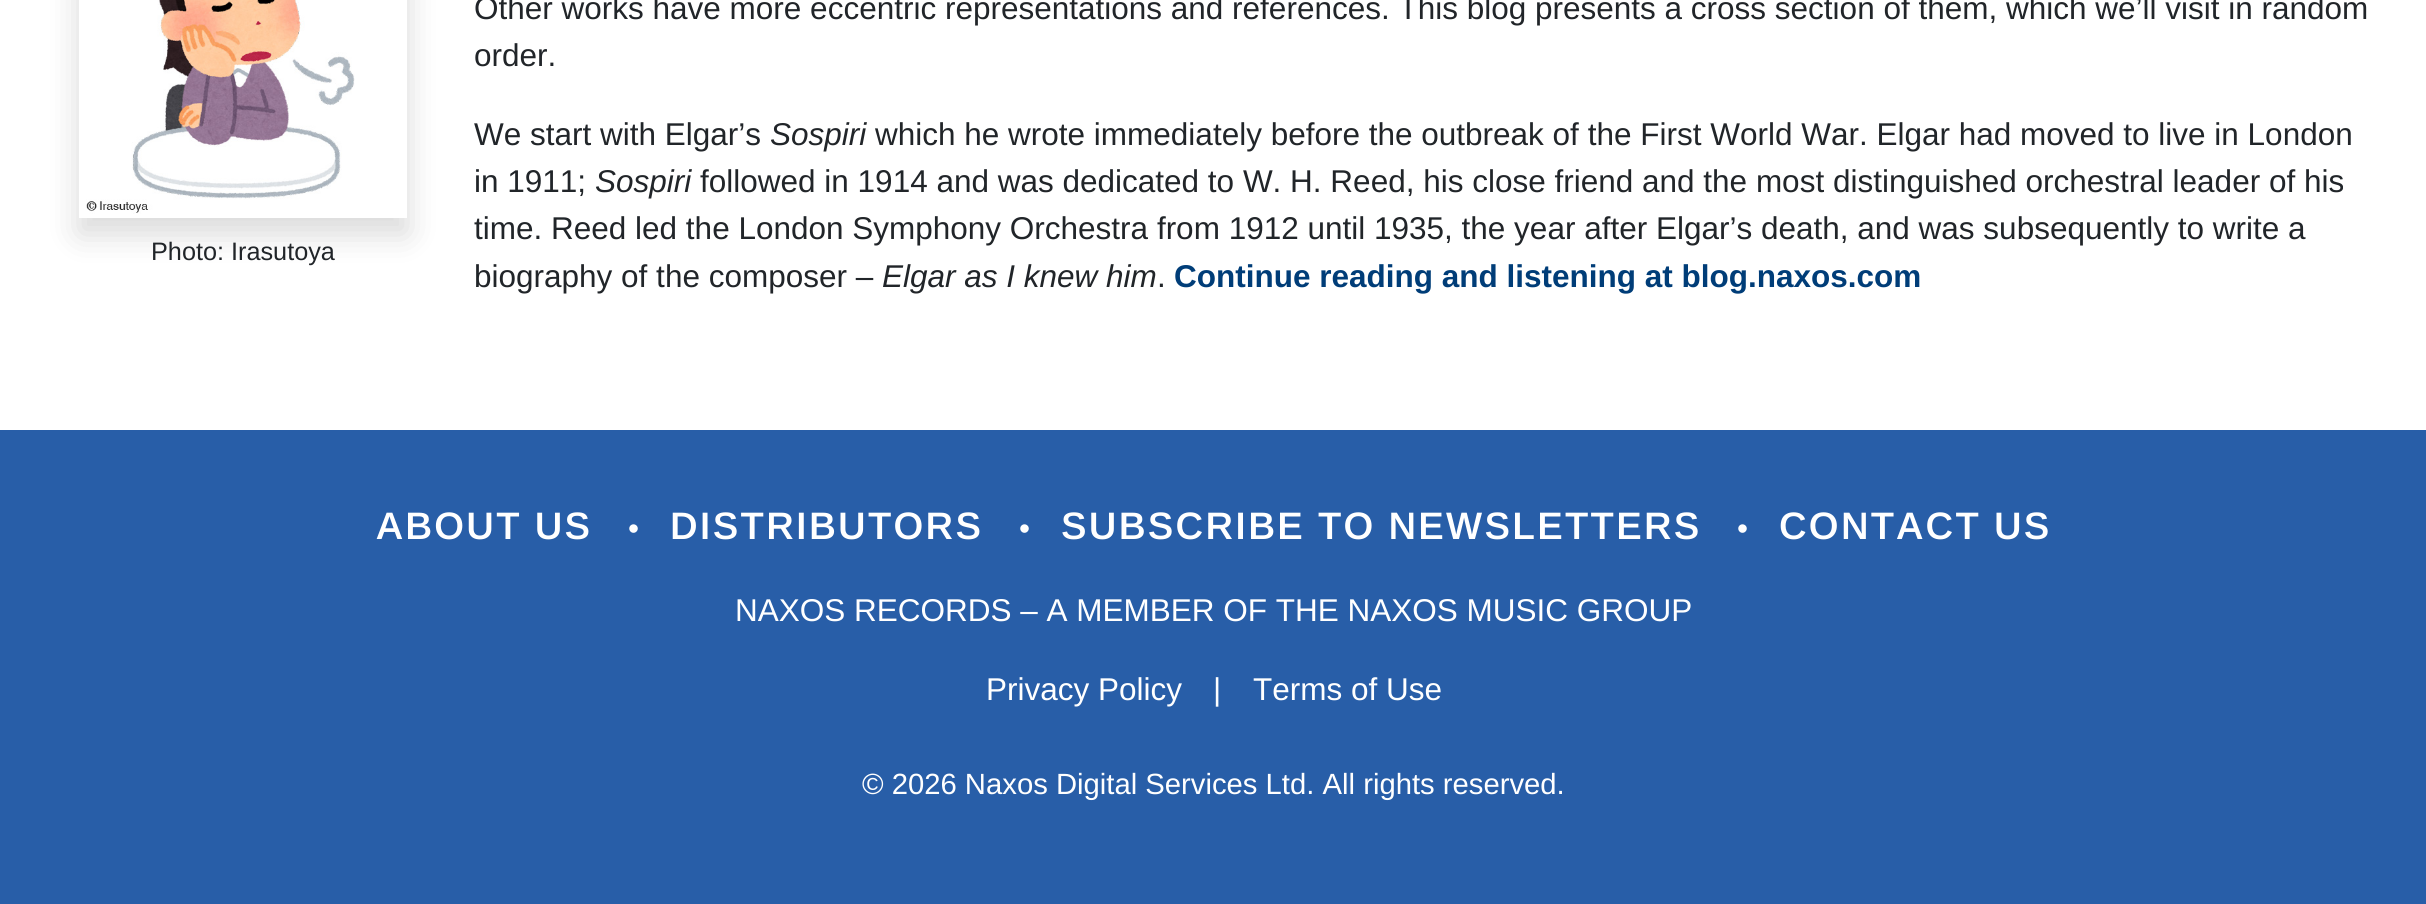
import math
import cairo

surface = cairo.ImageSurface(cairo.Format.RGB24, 2426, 904)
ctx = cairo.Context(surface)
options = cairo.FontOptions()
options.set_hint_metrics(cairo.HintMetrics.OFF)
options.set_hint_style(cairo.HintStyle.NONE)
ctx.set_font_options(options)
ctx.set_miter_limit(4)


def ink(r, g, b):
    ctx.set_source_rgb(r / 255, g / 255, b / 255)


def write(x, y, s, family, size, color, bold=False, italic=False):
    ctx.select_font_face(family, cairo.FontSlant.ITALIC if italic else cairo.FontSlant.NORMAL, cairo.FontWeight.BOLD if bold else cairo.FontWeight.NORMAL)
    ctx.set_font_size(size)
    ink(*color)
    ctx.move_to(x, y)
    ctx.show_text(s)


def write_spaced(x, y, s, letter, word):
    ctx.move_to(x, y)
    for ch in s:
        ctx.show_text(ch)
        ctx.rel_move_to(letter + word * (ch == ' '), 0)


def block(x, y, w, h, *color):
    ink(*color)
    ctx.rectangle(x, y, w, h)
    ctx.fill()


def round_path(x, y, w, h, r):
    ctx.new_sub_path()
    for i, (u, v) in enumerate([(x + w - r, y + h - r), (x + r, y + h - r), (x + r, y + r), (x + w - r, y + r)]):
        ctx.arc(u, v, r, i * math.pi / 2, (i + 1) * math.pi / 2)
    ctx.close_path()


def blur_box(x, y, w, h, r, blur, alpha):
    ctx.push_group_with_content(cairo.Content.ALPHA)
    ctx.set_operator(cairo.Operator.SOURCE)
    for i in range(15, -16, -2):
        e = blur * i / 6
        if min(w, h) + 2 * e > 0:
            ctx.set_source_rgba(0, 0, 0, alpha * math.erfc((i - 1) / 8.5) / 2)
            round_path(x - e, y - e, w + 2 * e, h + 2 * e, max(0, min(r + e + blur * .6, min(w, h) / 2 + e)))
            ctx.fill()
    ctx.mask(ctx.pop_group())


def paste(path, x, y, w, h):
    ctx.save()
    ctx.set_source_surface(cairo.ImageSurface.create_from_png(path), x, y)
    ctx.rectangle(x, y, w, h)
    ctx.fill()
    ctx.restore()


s1 = dict(family="Arimo", size=25.25, color=(33, 37, 41))
s2 = dict(family="Arimo", size=31.5, color=(33, 37, 41))
s3 = dict(family="Arimo", size=31.5, color=(33, 37, 41), italic=True)
s4 = dict(family="Arimo", size=31.5, color=(0, 61, 120), bold=True)
s5 = dict(family="Arimo", size=31.5, color=(255, 255, 255))
s6 = dict(family="Arimo", size=29.25, color=(255, 255, 255))

ink(255, 255, 255)
ctx.paint()
ctx.save()
ctx.set_fill_rule(cairo.FillRule.EVEN_ODD)
ctx.new_path()
ctx.move_to(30, 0)
ctx.line_to(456, 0)
ctx.line_to(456, 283)
ctx.line_to(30, 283)
ctx.close_path()
ctx.move_to(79, -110)
ctx.line_to(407, -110)
ctx.line_to(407, 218)
ctx.line_to(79, 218)
ctx.close_path()
ctx.clip()
ink(0, 0, 0)
blur_box(79, -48, 328, 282, 0, 16, 0.15)
ctx.restore()
paste("pic1.png", 86, 0, 269, 214)
write(151, 260, "Photo: Irasutoya", **s1)
write(474, 19, "Other works have more eccentric representations and references. This blog presents a cross section of them, which we’ll visit in random", **s2)
write(474, 66, "order.", **s2)
write(474, 145, "We start with Elgar’s", **s2)
write(770, 145, "Sospiri", **s3)
write(875, 145, "which he wrote immediately before the outbreak of the First World War. Elgar had moved to live in London", **s2)
write(474, 192, "in 1911;", **s2)
write(595, 192, "Sospiri", **s3)
write(700, 192, "followed in 1914 and was dedicated to W. H. Reed, his close friend and the most distinguished orchestral leader of his", **s2)
write(474, 239, "time. Reed led the London Symphony Orchestra from 1912 until 1935, the year after Elgar’s death, and was subsequently to write a", **s2)
write(474, 287, "biography of the composer –", **s2)
write(882, 287, "Elgar as I knew him", **s3)
write(1157, 287, ".", **s2)
write(1174, 287, "Continue reading and listening at blog.naxos.com", **s4)
block(0, 430, 2426, 474, 40, 94, 168)
ctx.select_font_face("Arimo SemiBold")
ctx.set_font_size(38.25)
ink(255, 255, 255)
write_spaced(376, 539, "ABOUT US", 2.25, 0)
write(628, 539, "•", **s5)
ctx.select_font_face("Arimo SemiBold")
ctx.set_font_size(38.25)
write_spaced(670, 539, "DISTRIBUTORS", 2.25, 0)
write(1019, 539, "•", **s5)
ctx.select_font_face("Arimo SemiBold")
ctx.set_font_size(38.25)
write_spaced(1061, 539, "SUBSCRIBE TO NEWSLETTERS", 2.25, 0)
write(1737, 539, "•", **s5)
ctx.select_font_face("Arimo SemiBold")
ctx.set_font_size(38.25)
write_spaced(1779, 539, "CONTACT US", 2.25, 0)
write(735, 621, "NAXOS RECORDS – A MEMBER OF THE NAXOS MUSIC GROUP", **s5)
write(986, 700, "Privacy Policy", **s5)
write(1213, 700, "|", **s5)
write(1253, 700, "Terms of Use", **s5)
write(862, 794, "© 2026 Naxos Digital Services Ltd. All rights reserved.", **s6)
surface.write_to_png("screenshot.png")
